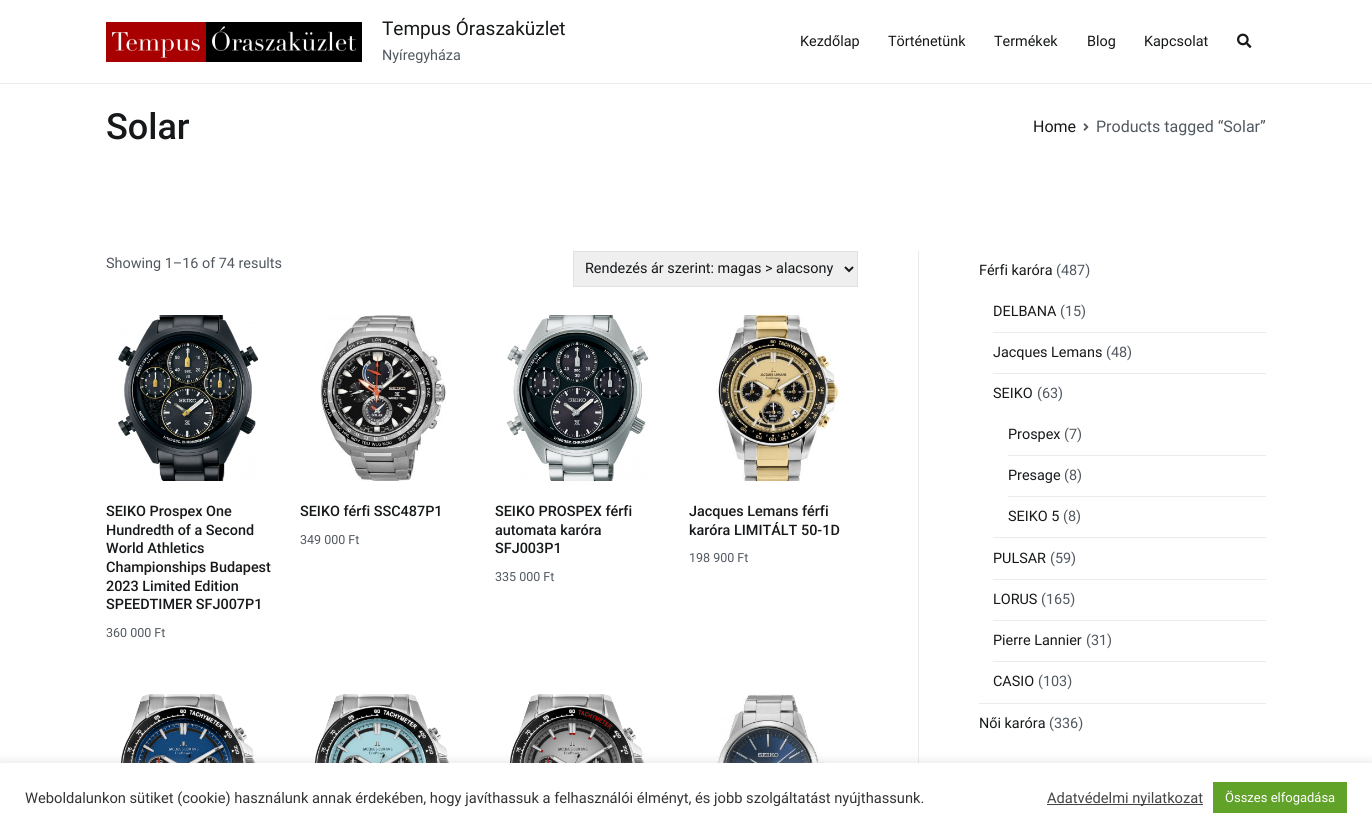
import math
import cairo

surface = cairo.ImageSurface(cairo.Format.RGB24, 1372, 832)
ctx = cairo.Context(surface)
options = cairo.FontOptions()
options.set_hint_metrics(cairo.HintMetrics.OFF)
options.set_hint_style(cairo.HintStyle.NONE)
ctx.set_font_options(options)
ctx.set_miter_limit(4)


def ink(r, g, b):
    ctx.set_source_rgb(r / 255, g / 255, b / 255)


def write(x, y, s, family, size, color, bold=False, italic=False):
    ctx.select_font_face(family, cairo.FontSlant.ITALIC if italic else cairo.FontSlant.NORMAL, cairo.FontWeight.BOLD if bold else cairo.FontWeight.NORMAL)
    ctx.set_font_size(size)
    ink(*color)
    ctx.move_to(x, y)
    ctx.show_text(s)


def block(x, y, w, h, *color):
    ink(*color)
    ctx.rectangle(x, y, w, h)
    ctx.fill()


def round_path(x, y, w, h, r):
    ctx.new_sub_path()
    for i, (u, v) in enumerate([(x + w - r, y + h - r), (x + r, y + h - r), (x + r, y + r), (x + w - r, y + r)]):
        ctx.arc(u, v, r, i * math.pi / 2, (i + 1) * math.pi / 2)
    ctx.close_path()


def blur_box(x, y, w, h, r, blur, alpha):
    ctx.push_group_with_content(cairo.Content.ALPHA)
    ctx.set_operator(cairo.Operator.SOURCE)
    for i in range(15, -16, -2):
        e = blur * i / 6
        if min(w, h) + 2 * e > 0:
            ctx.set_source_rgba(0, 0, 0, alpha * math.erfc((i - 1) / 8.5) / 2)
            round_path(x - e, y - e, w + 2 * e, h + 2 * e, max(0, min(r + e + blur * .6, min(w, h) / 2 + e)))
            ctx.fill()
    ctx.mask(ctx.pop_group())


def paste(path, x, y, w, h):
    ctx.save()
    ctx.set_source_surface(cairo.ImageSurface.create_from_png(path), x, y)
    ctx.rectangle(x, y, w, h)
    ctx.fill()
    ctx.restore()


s1 = dict(family="Roboto", size=19, color=(22, 24, 26))
s2 = dict(family="Roboto", size=14.4, color=(81, 88, 95))
s3 = dict(family="Roboto", size=14.4, color=(22, 24, 26))
s4 = dict(family="Roboto Medium", size=36, color=(22, 24, 26))
s5 = dict(family="Roboto", size=16, color=(22, 24, 26))
s6 = dict(family="Roboto", size=16, color=(81, 88, 95))
s7 = dict(family="Roboto Medium", size=14.4, color=(22, 24, 26))
s8 = dict(family="Roboto", size=12.5, color=(81, 88, 95))
s9 = dict(family="Roboto", size=14.67, color=(51, 51, 51))
s10 = dict(family="Roboto", size=14.67, color=(68, 68, 68))
s11 = dict(family="Roboto", size=13, color=(255, 255, 255))

ink(255, 255, 255)
ctx.paint()
block(0, 83, 1372, 1, 233, 236, 239)
paste("pic1.png", 106, 22, 256, 40)
write(382, 35, "Tempus Óraszaküzlet", **s1)
write(382, 60, "Nyíregyháza", **s2)
write(800, 46, "Kezdőlap", **s3)
write(888, 46, "Történetünk", **s3)
write(994, 46, "Termékek", **s3)
write(1087, 46, "Blog", **s3)
write(1144, 46, "Kapcsolat", **s3)
paste("pic2.png", 1237, 33, 15, 15)
write(106, 139, "Solar", **s4)
write(1033, 132, "Home", **s5)
paste("pic3.png", 1083, 123, 6, 8)
write(1096, 132, "Products tagged “Solar”", **s6)
write(106, 268, "Showing 1–16 of 74 results", **s2)
ink(239, 239, 239)
ctx.rectangle(573.5, 251.5, 284, 35)
ctx.fill_preserve()
ink(222, 226, 230)
ctx.set_line_width(1)
ctx.stroke()
ctx.new_path()
ctx.move_to(845, 267)
ctx.line_to(849, 271)
ctx.line_to(853, 267)
ink(22, 24, 26)
ctx.set_line_width(2)
ctx.stroke()
write(585, 273, "Rendezés ár szerint: magas > alacsony", **s3)
paste("pic4.png", 118, 315, 141, 166)
write(106, 516, "SEIKO Prospex One", **s7)
write(106, 535, "Hundredth of a Second", **s7)
write(106, 553, "World Athletics", **s7)
write(106, 572, "Championships Budapest", **s7)
write(106, 591, "2023 Limited Edition", **s7)
write(106, 609, "SPEEDTIMER SFJ007P1", **s7)
write(106, 637, "360 000 Ft", **s8)
paste("pic5.png", 320, 315, 126, 166)
write(300, 516, "SEIKO férfi SSC487P1", **s7)
write(300, 544, "349 000 Ft", **s8)
paste("pic6.png", 506, 315, 143, 166)
write(495, 516, "SEIKO PROSPEX férfi", **s7)
write(495, 535, "automata karóra", **s7)
write(495, 553, "SFJ003P1", **s7)
write(495, 581, "335 000 Ft", **s8)
paste("pic7.png", 716, 315, 124, 166)
write(689, 516, "Jacques Lemans férfi", **s7)
write(689, 535, "karóra LIMITÁLT 50-1D", **s7)
write(689, 562, "198 900 Ft", **s8)
paste("pic8.png", 120, 694, 136, 69)
paste("pic9.png", 314, 694, 136, 69)
paste("pic10.png", 509, 694, 136, 69)
paste("pic11.png", 717, 694, 111, 69)
block(918, 251, 1, 512, 233, 236, 239)
block(979, 703, 287, 1, 233, 236, 239)
write(979, 275, "Férfi karóra", **s3)
write(1056, 275, "(487)", **s2)
block(993, 332, 273, 1, 233, 236, 239)
write(993, 316, "DELBANA", **s3)
write(1060, 316, "(15)", **s2)
block(993, 373, 273, 1, 233, 236, 239)
write(993, 357, "Jacques Lemans", **s3)
write(1106, 357, "(48)", **s2)
block(993, 537, 273, 1, 233, 236, 239)
write(993, 398, "SEIKO", **s3)
write(1037, 398, "(63)", **s2)
block(1008, 455, 258, 1, 233, 236, 239)
write(1008, 439, "Prospex", **s3)
write(1064, 439, "(7)", **s2)
block(1008, 496, 258, 1, 233, 236, 239)
write(1008, 480, "Presage", **s3)
write(1064, 480, "(8)", **s2)
write(1008, 521, "SEIKO 5", **s3)
write(1063, 521, "(8)", **s2)
block(993, 579, 273, 1, 233, 236, 239)
write(993, 563, "PULSAR", **s3)
write(1050, 563, "(59)", **s2)
block(993, 620, 273, 1, 233, 236, 239)
write(993, 604, "LORUS", **s3)
write(1041, 604, "(165)", **s2)
block(993, 661, 273, 1, 233, 236, 239)
write(993, 645, "Pierre Lannier", **s3)
write(1086, 645, "(31)", **s2)
write(993, 686, "CASIO", **s3)
write(1038, 686, "(103)", **s2)
write(979, 728, "Női karóra", **s3)
write(1049, 728, "(336)", **s2)
ink(172, 171, 171)
blur_box(0, 762, 1372, 69, 0, 5, 0.3)
block(0, 763, 1372, 69, 255, 255, 255)
write(25, 803, "Weboldalunkon sütiket (cookie) használunk annak érdekében, hogy javíthassuk a felhasználói élményt, és jobb szolgáltatást nyújthassunk.", **s9)
block(1047, 804, 156, 1, 68, 68, 68)
write(1047, 803, "Adatvédelmi nyilatkozat", **s10)
block(1213, 782, 134, 31, 97, 162, 41)
write(1225, 802, "Összes elfogadása", **s11)
surface.write_to_png("screenshot.png")
